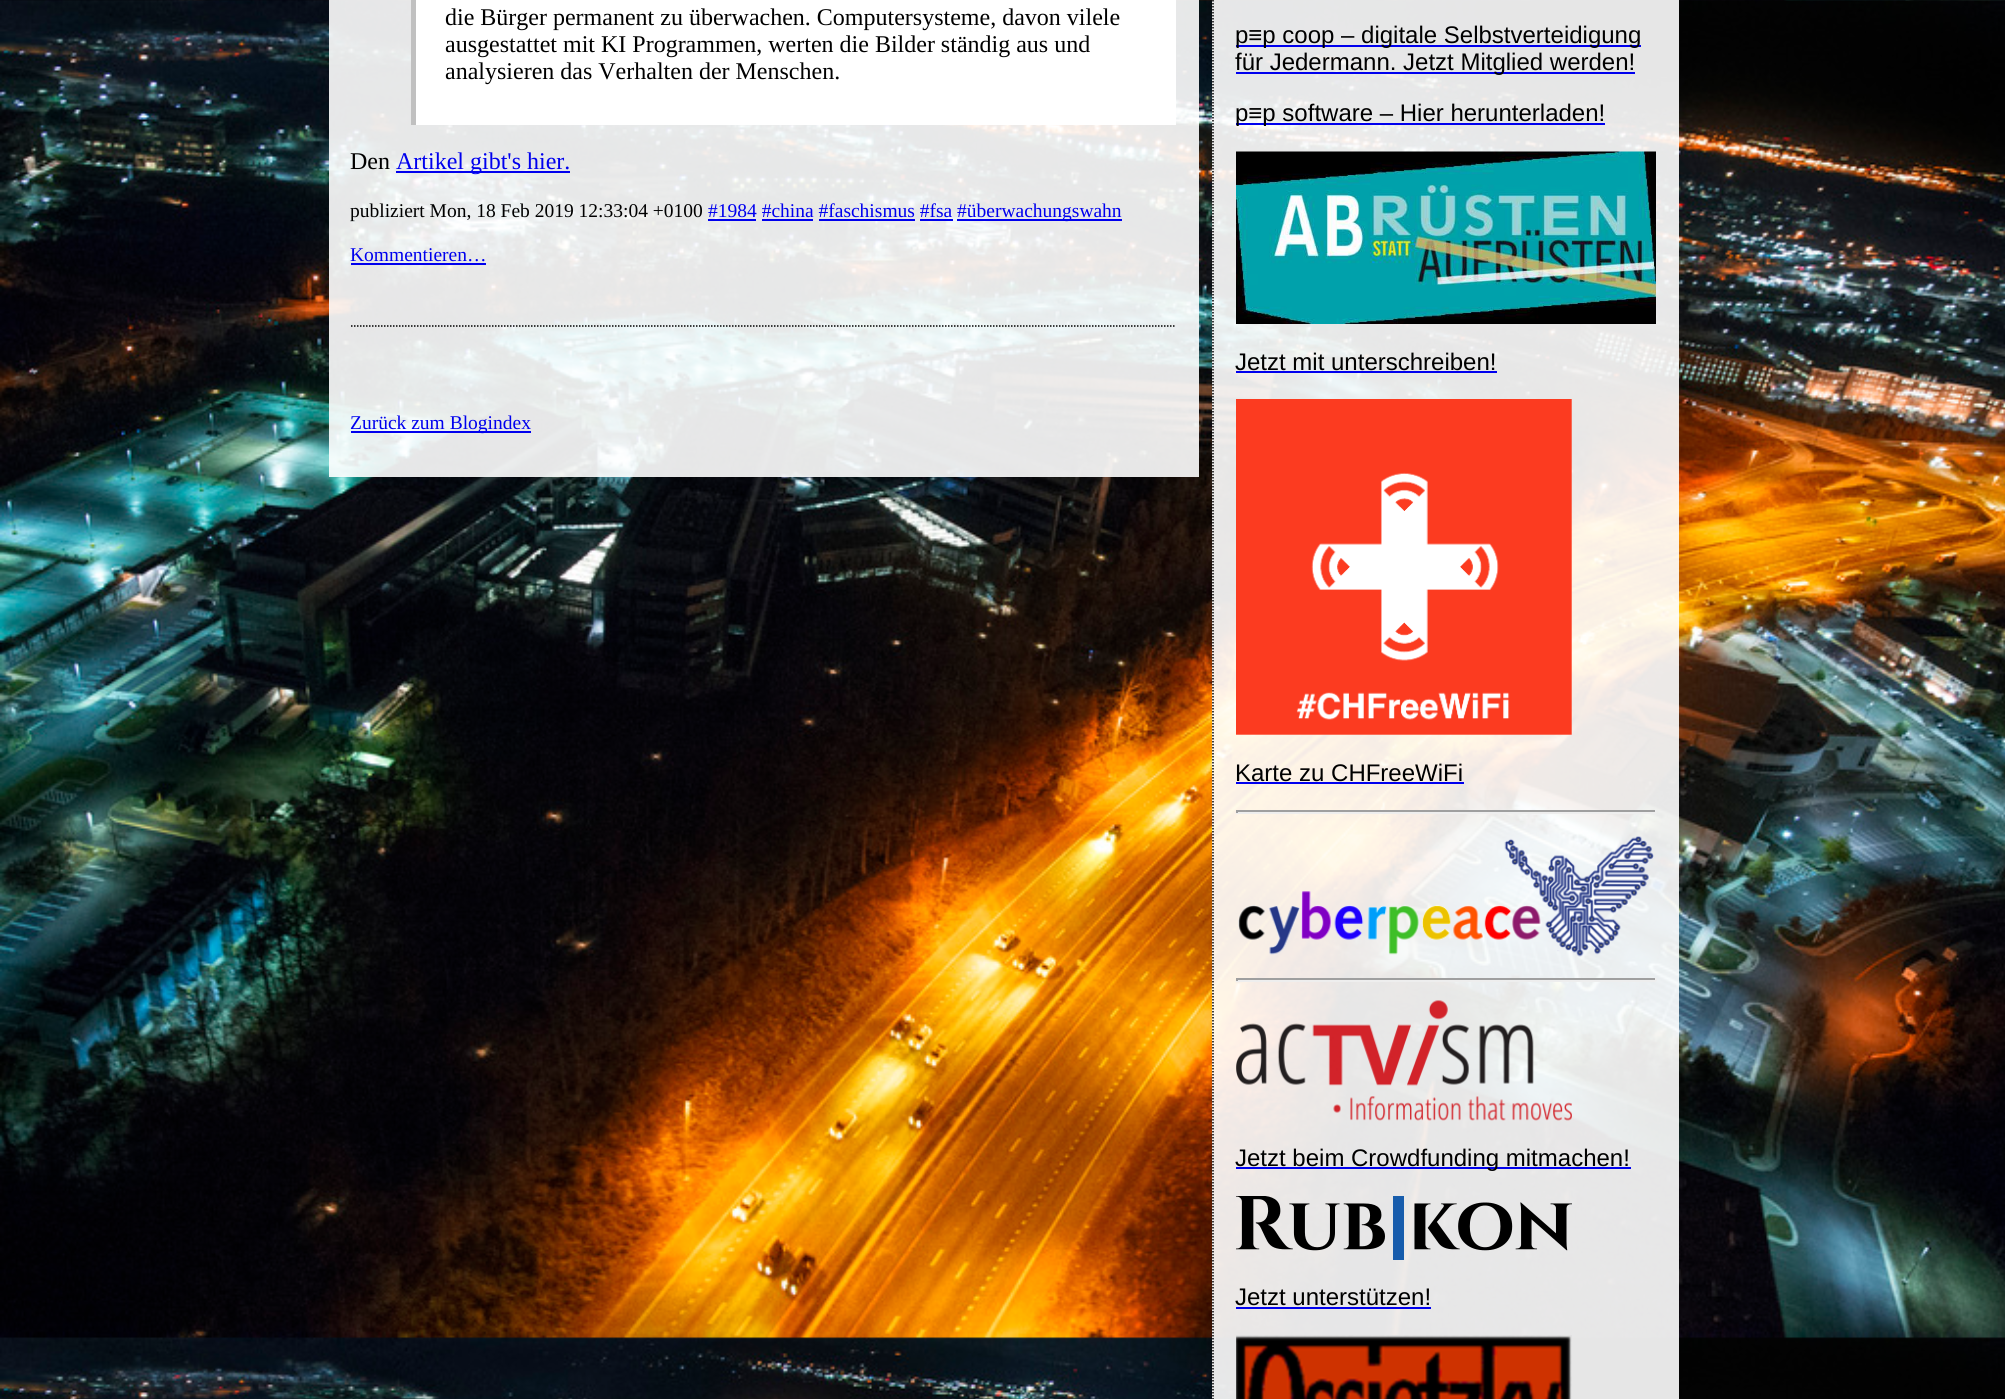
import math
import cairo

surface = cairo.ImageSurface(cairo.Format.RGB24, 2005, 1399)
ctx = cairo.Context(surface)
options = cairo.FontOptions()
options.set_hint_metrics(cairo.HintMetrics.OFF)
options.set_hint_style(cairo.HintStyle.NONE)
ctx.set_font_options(options)
ctx.set_miter_limit(4)


def ink(r, g, b):
    ctx.set_source_rgb(r / 255, g / 255, b / 255)


def write(x, y, s, family, size, color, bold=False, italic=False):
    ctx.select_font_face(family, cairo.FontSlant.ITALIC if italic else cairo.FontSlant.NORMAL, cairo.FontWeight.BOLD if bold else cairo.FontWeight.NORMAL)
    ctx.set_font_size(size)
    ink(*color)
    ctx.move_to(x, y)
    ctx.show_text(s)


def block(x, y, w, h, *color):
    ink(*color)
    ctx.rectangle(x, y, w, h)
    ctx.fill()


def paste(path, x, y, w, h):
    ctx.save()
    ctx.set_source_surface(cairo.ImageSurface.create_from_png(path), x, y)
    ctx.rectangle(x, y, w, h)
    ctx.fill()
    ctx.restore()


s1 = dict(family="Liberation Serif", size=24, color=(0, 0, 0))
s2 = dict(family="Liberation Serif", size=24, color=(0, 0, 238))
s3 = dict(family="Liberation Serif", size=19.5, color=(0, 0, 0))
s4 = dict(family="Liberation Serif", size=19.5, color=(0, 0, 238))
s5 = dict(family="Liberation Sans", size=24, color=(0, 0, 0))

ink(255, 255, 255)
ctx.paint()
paste("pic1.png", 0, 0, 2005, 1399)
ctx.set_source_rgba(1, 1, 1, 0.9)
ctx.rectangle(329, 0, 870, 369)
ctx.fill()
block(416, 0, 760, 125, 255, 255, 255)
block(411, 0, 5, 125, 192, 192, 192)
write(445, 25, "die Bürger permanent zu überwachen. Computersysteme, davon vilele", **s1)
write(445, 52, "ausgestattet mit KI Programmen, werten die Bilder ständig aus und", **s1)
write(445, 79, "analysieren das Verhalten der Menschen.", **s1)
write(350, 169, "Den", **s1)
block(396, 171, 174, 2, 0, 0, 238)
write(396, 169, "Artikel gibt's hier.", **s2)
ctx.new_path()
ctx.move_to(351, 326)
ctx.line_to(1176, 326)
ink(0, 0, 0)
ctx.set_line_width(1.5)
ctx.set_dash([1.5, 1.5])
ctx.stroke()
write(350, 217, "publiziert Mon, 18 Feb 2019 12:33:04 +0100", **s3)
write(708, 217, "#1984 #china #faschismus #fsa", **s4)
block(708, 219, 48, 2, 0, 0, 238)
block(957, 219, 165, 2, 0, 0, 238)
write(957, 217, "#überwachungswahn", **s4)
block(762, 219, 51, 2, 0, 0, 238)
block(819, 219, 96, 2, 0, 0, 238)
block(920, 219, 33, 2, 0, 0, 238)
write(350, 261, "Kommentieren…", **s4)
block(351, 263, 135, 2, 0, 0, 238)
ctx.set_source_rgba(1, 1, 1, 0.9)
ctx.rectangle(329, 369, 870, 108)
ctx.fill()
block(351, 431, 180, 2, 0, 0, 238)
write(350, 429, "Zurück zum Blogindex", **s4)
ctx.set_source_rgba(1, 1, 1, 0.9)
ctx.rectangle(1212, 0, 467, 1399)
ctx.fill()
ctx.new_path()
ctx.move_to(1213, -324)
ctx.line_to(1213, 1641)
ink(0, 0, 0)
ctx.stroke()
block(1236, 45, 405, 2, 0, 0, 238)
write(1235, 43, "p≡p coop – digitale Selbstverteidigung", **s5)
block(1236, 72, 399, 2, 0, 0, 238)
write(1235, 70, "für Jedermann. Jetzt Mitglied werden!", **s5)
block(1236, 123, 369, 2, 0, 0, 238)
write(1235, 121, "p≡p software – Hier herunterladen!", **s5)
paste("pic2.png", 1236, 151, 420, 173)
write(1235, 370, "Jetzt mit unterschreiben!", **s5)
block(1236, 371, 261, 2, 0, 0, 238)
paste("pic3.png", 1236, 399, 336, 336)
write(1235, 781, "Karte zu CHFreeWiFi", **s5)
block(1236, 782, 228, 2, 0, 0, 238)
block(1236, 810, 420, 2, 159, 159, 159)
block(1655, 810, 2, 3, 238, 238, 238)
block(1236, 812, 420, 2, 238, 238, 238)
block(1236, 810, 2, 3, 159, 159, 159)
paste("pic4.png", 1238, 836, 416, 121)
block(1236, 978, 420, 2, 159, 159, 159)
block(1655, 978, 2, 3, 238, 238, 238)
block(1236, 980, 420, 2, 238, 238, 238)
block(1236, 978, 2, 3, 159, 159, 159)
paste("pic5.png", 1236, 1000, 336, 121)
block(1236, 1167, 395, 2, 0, 0, 238)
write(1235, 1166, "Jetzt beim Crowdfunding mitmachen!", **s5)
paste("pic6.png", 1236, 1196, 336, 64)
write(1235, 1305, "Jetzt unterstützen!", **s5)
block(1236, 1307, 195, 2, 0, 0, 238)
paste("pic7.png", 1236, 1335, 336, 64)
surface.write_to_png("screenshot.png")
